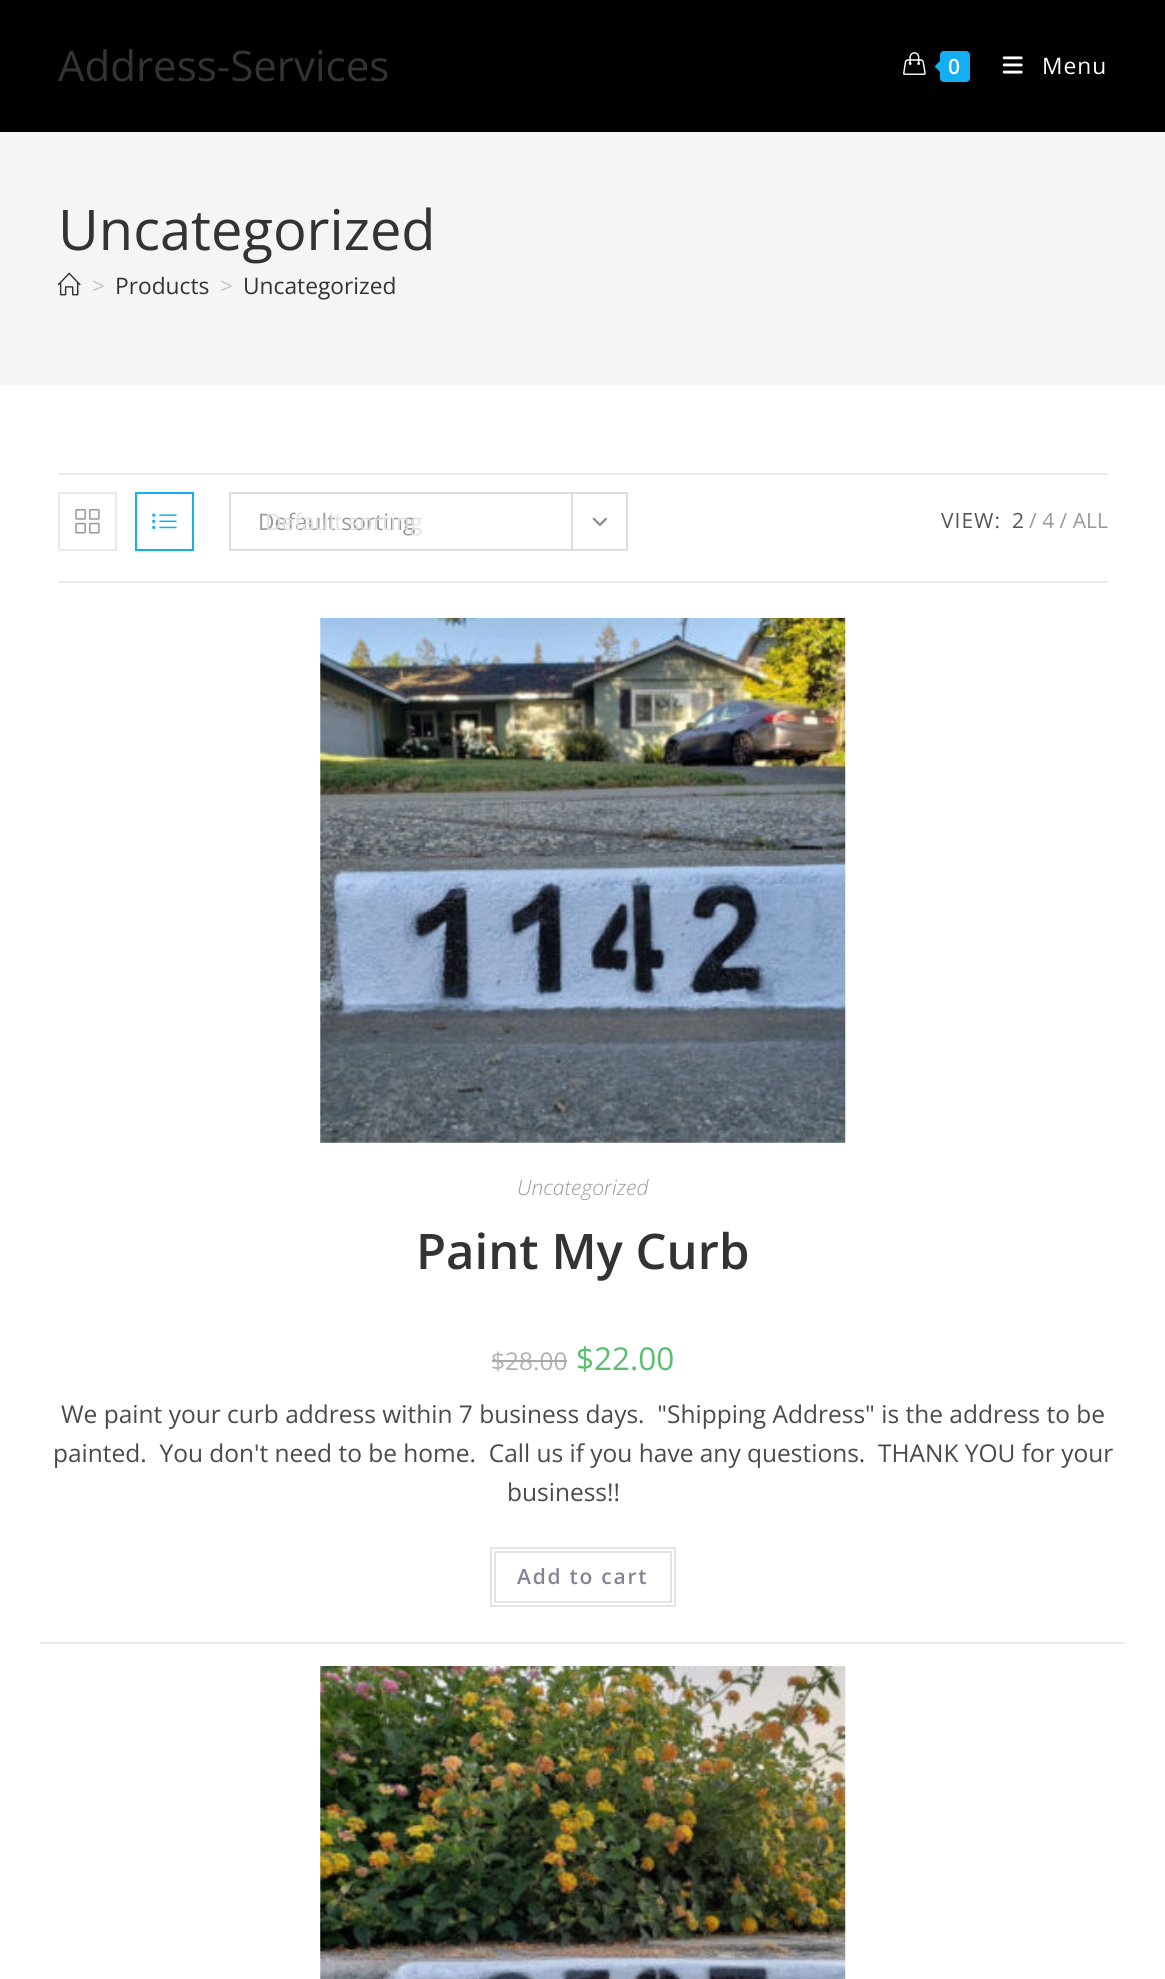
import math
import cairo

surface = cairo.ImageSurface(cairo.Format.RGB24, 1165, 1979)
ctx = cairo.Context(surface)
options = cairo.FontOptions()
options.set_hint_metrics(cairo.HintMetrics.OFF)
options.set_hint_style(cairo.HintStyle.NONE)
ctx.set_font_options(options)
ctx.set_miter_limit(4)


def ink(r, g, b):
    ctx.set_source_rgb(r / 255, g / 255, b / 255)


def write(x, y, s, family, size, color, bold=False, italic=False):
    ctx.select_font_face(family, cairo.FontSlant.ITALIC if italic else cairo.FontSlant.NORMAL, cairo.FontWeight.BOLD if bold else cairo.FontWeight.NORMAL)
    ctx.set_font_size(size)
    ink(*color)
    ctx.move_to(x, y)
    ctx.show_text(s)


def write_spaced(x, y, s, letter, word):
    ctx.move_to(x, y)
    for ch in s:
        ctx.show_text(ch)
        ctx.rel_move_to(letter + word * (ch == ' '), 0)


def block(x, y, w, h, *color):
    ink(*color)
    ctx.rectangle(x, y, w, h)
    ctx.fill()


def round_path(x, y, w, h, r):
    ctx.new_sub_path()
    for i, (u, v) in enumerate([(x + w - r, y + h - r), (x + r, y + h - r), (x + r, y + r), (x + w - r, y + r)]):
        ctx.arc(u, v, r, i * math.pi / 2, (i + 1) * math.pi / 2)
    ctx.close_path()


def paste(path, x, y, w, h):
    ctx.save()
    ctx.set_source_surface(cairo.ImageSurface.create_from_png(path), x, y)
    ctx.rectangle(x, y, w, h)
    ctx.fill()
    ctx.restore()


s1 = dict(family="Open Sans", size=42, color=(51, 51, 51))
s2 = dict(family="Open Sans", size=56, color=(51, 51, 51))
s3 = dict(family="Open Sans", size=22.75, color=(198, 198, 198))
s4 = dict(family="Open Sans", size=22.75, color=(51, 51, 51))
s5 = dict(family="Open Sans", size=22.75, color=(153, 153, 153))
s6 = dict(family="Open Sans", size=22.75, color=(225, 225, 225))
s7 = dict(family="Open Sans", size=21, color=(85, 85, 85))
s8 = dict(family="Open Sans", size=21, color=(153, 153, 153))
s9 = dict(family="Open Sans Light", size=21, color=(153, 153, 153), italic=True)
s10 = dict(family="Open Sans SemiBold", size=49, color=(51, 51, 51))
s11 = dict(family="Open Sans", size=24.5, color=(179, 179, 179))
s12 = dict(family="Open Sans", size=31.5, color=(87, 191, 109))
s13 = dict(family="Open Sans", size=24.5, color=(74, 74, 74))

ink(255, 255, 255)
ctx.paint()
block(0, 0, 1165, 132, 0, 0, 0)
write(58, 81, "Address-Services", **s1)
paste("pic1.png", 903, 52, 23, 23)
ink(19, 175, 240)
round_path(940, 51, 30, 31, 4)
ctx.fill()
ctx.new_path()
ctx.move_to(943, 58)
ctx.line_to(943, 75)
ctx.line_to(934.5, 66.5)
ctx.close_path()
ctx.fill()
ctx.select_font_face("Open Sans SemiBold")
ctx.set_font_size(21)
ink(255, 255, 255)
write_spaced(948, 74, "0", 1, 0)
paste("pic2.png", 1002, 56, 21, 18)
ctx.select_font_face("Open Sans")
ctx.set_font_size(22.75)
write_spaced(1042, 74, "Menu", 1, 0)
block(0, 132, 1165, 253, 245, 245, 245)
write(58, 250, "Uncategorized", **s2)
paste("pic3.png", 58, 272, 23, 24)
write(92, 294, ">", **s3)
write(115, 294, "Products", **s4)
write(220, 294, ">", **s3)
write(243, 294, "Uncategorized", **s4)
block(58, 473, 1050, 2, 234, 234, 234)
block(58, 581, 1050, 2, 234, 234, 234)
ctx.rectangle(59, 493, 57, 57)
ctx.stroke()
paste("pic4.png", 75, 509, 25, 25)
ctx.rectangle(136, 493, 57, 57)
ink(19, 175, 240)
ctx.stroke()
paste("pic5.png", 152, 513, 25, 16)
ctx.rectangle(230, 493, 397, 57)
ink(221, 221, 221)
ctx.stroke()
write(258, 530, "Default sorting", **s5)
block(571, 494, 2, 56, 221, 221, 221)
paste("pic6.png", 592, 517, 16, 9)
write(265, 530, "Default sorting", **s6)
ctx.set_font_size(21)
ink(85, 85, 85)
write_spaced(941, 528, "VIEW:", 1, 0)
write(1012, 528, "2", **s7)
write(1029, 528, "/ 4 / ALL", **s8)
block(40, 1642, 1085, 2, 234, 234, 234)
paste("pic7.png", 320, 617, 526, 526)
write(517, 1195, "Uncategorized", **s9)
write(416, 1269, "Paint My Curb", **s10)
write(491, 1370, "$28.00", **s11)
block(492, 1360, 75, 2, 170, 170, 170)
write(576, 1370, "$22.00", **s12)
write(61, 1423, "We paint your curb address within 7 business days.  \"Shipping Address\" is the address to be", **s13)
write(53, 1462, "painted.  You don't need to be home.  Call us if you have any questions.  THANK YOU for your", **s13)
write(507, 1501, "business!!", **s13)
ctx.rectangle(491, 1548, 184, 58)
ink(228, 228, 228)
ctx.stroke()
ctx.rectangle(495, 1552, 176, 50)
ctx.stroke()
ctx.select_font_face("Open Sans SemiBold")
ctx.set_font_size(21)
ink(132, 132, 148)
write_spaced(517, 1584, "Add to cart", 1.75, 0)
paste("pic8.png", 320, 1666, 526, 313)
surface.write_to_png("screenshot.png")
